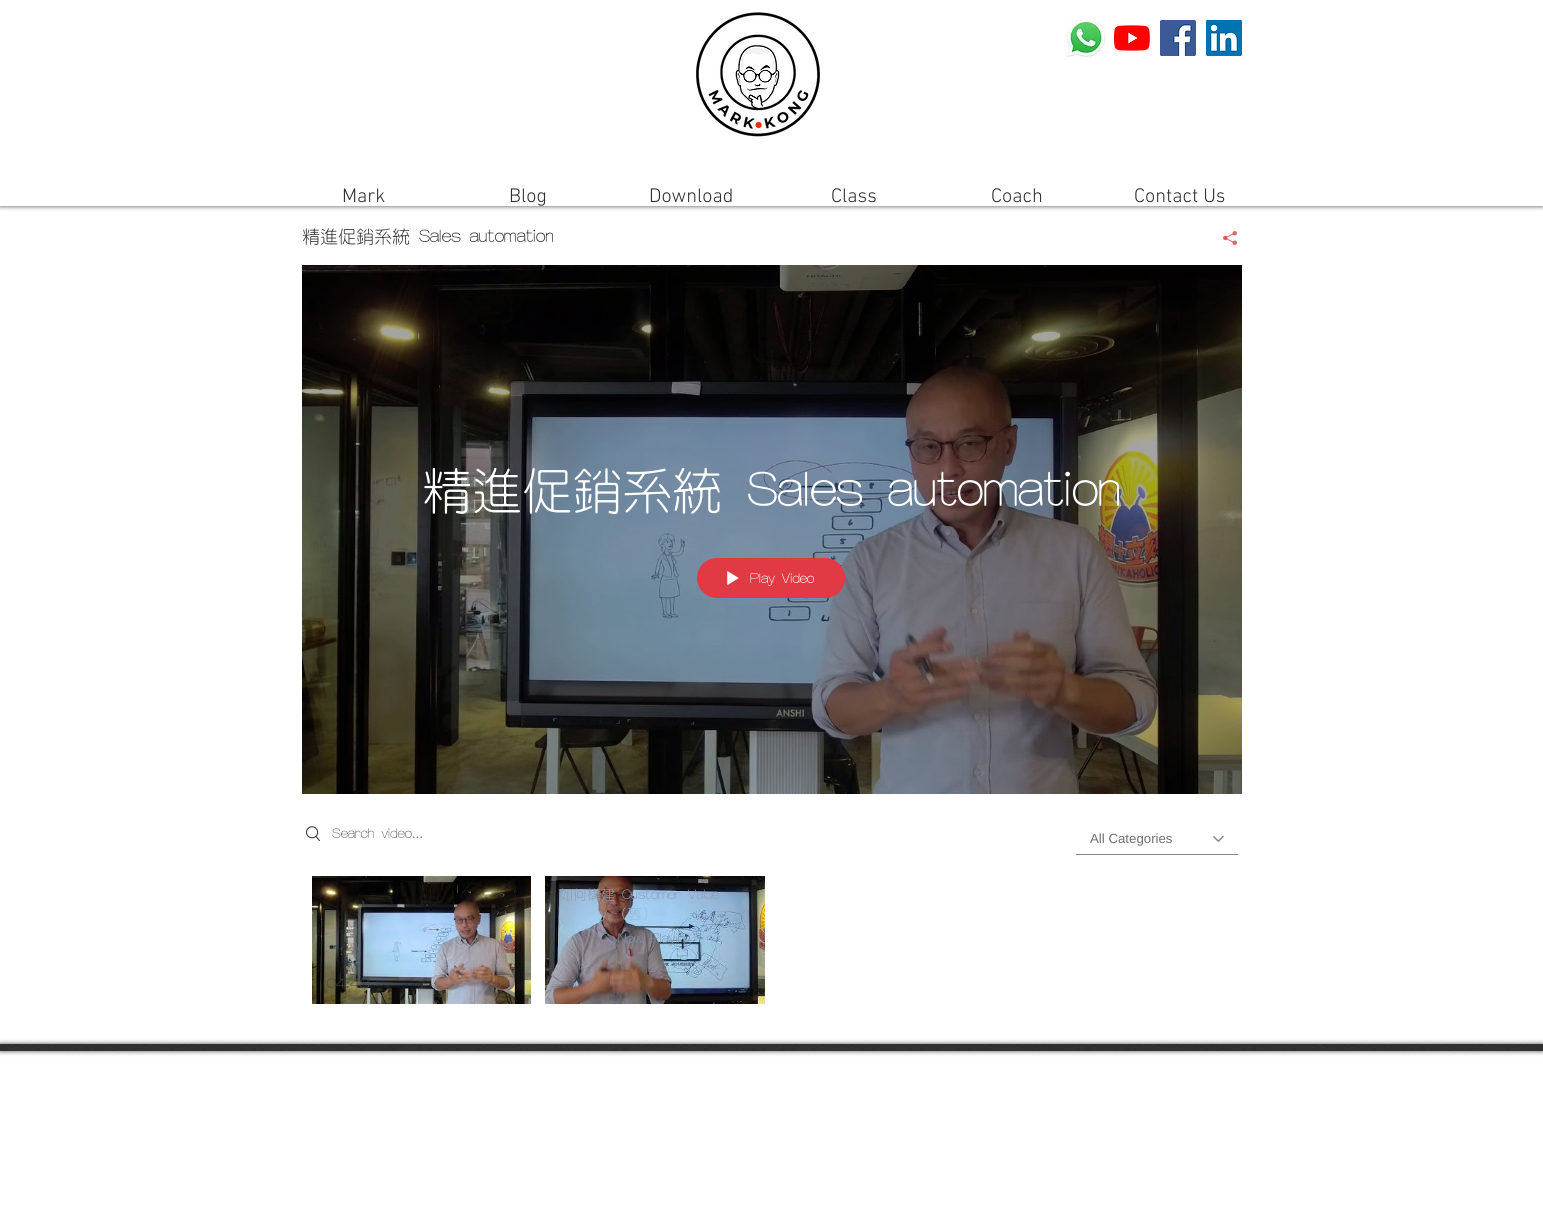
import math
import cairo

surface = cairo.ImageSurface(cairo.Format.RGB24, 1543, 1214)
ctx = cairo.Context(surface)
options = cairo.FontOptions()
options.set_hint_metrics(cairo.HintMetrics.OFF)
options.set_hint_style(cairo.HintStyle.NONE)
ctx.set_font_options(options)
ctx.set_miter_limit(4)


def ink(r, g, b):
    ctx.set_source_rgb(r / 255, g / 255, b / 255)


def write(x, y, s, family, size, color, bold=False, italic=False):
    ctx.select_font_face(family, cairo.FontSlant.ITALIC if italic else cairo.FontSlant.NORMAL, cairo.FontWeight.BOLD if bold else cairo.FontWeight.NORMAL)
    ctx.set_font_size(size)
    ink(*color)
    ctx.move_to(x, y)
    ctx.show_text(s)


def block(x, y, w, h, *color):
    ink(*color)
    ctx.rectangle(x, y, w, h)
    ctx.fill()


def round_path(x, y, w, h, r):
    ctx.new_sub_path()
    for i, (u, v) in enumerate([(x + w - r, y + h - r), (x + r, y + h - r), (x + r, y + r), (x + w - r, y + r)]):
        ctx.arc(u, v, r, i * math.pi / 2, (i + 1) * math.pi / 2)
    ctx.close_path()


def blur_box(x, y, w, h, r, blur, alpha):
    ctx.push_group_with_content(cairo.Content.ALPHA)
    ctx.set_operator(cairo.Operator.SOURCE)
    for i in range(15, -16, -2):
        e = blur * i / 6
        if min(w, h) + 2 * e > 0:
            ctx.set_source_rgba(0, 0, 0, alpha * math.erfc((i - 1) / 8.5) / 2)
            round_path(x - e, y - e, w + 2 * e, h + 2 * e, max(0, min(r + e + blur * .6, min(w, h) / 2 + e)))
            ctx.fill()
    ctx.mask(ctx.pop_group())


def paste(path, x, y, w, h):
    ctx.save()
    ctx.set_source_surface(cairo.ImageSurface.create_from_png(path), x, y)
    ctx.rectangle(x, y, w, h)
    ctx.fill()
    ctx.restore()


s1 = dict(family="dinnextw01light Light", size=20, color=(48, 48, 48))
s2 = dict(family="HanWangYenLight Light", size=18, color=(48, 48, 48))
s3 = dict(family="HanWangYenLight Light", size=50, color=(255, 255, 255))
s4 = dict(family="HanWangYenLight Light", size=14, color=(255, 255, 255))
s5 = dict(family="HanWangYenLight Light", size=14, color=(110, 110, 110))
s6 = dict(family="Liberation Sans", size=13.25, color=(110, 110, 110))
s7 = dict(family="HanWangYenLight Light", size=14, color=(141, 158, 182))
s8 = dict(family="HanWangYenLight Light", size=14, color=(153, 182, 209))
s9 = dict(family="HanWangYenLight Light", size=14, color=(125, 145, 163))
s10 = dict(family="HanWangYenLight Light", size=14, color=(76, 74, 56))

ink(255, 255, 255)
ctx.paint()
ctx.save()
ctx.rectangle(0, 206, 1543, 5)
ctx.clip()
ink(0, 0, 0)
blur_box(0, 0, 1543, 206, 0, 2.5, 0.7)
ctx.restore()
paste("pic1.png", 696, 12, 124, 125)
paste("pic2.png", 1064, 16, 42, 42)
paste("pic3.png", 1114, 25, 36, 26)
paste("pic4.png", 1160, 20, 36, 36)
paste("pic5.png", 1206, 20, 36, 36)
write(342, 202, "Mark", **s1)
write(509, 202, "Blog", **s1)
write(649, 202, "Download", **s1)
write(831, 202, "Class", **s1)
write(991, 202, "Coach", **s1)
write(1134, 202, "Contact Us", **s1)
write(302, 242, "精進促銷系統 Sales automation", **s2)
paste("pic6.png", 1223, 231, 14, 14)
paste("pic7.png", 302, 265, 940, 529)
write(422, 506, "精進促銷系統 Sales automation", **s3)
ink(225, 58, 68)
round_path(697, 558, 148, 40, 20)
ctx.fill()
paste("pic8.png", 727, 571, 12, 14)
write(750, 583, "Play Video", **s4)
paste("pic9.png", 306, 826, 14, 16)
write(332, 838, "Search video...", **s5)
block(1076, 854, 162, 1, 131, 131, 131)
write(1090, 843, "All Categories", **s6)
paste("pic10.png", 1213, 836, 11, 6)
paste("pic11.png", 545, 876, 3, 128)
paste("pic12.png", 548, 876, 217, 128)
write(559, 899, "如何構建 Customer Value", **s7)
write(600, 918, "y （舊）", **s8)
write(618, 943, "Now Playing", **s9)
paste("pic13.png", 312, 876, 219, 128)
paste("pic14.png", 320, 876, 205, 128)
write(326, 988, "04:48", **s10)
ink(0, 0, 0)
blur_box(0, 1044, 1543, 7, 0, 2.5, 0.7)
block(0, 1044, 1543, 7, 48, 48, 48)
paste("pic15.png", 8, 1044, 1527, 7)
surface.write_to_png("screenshot.png")
